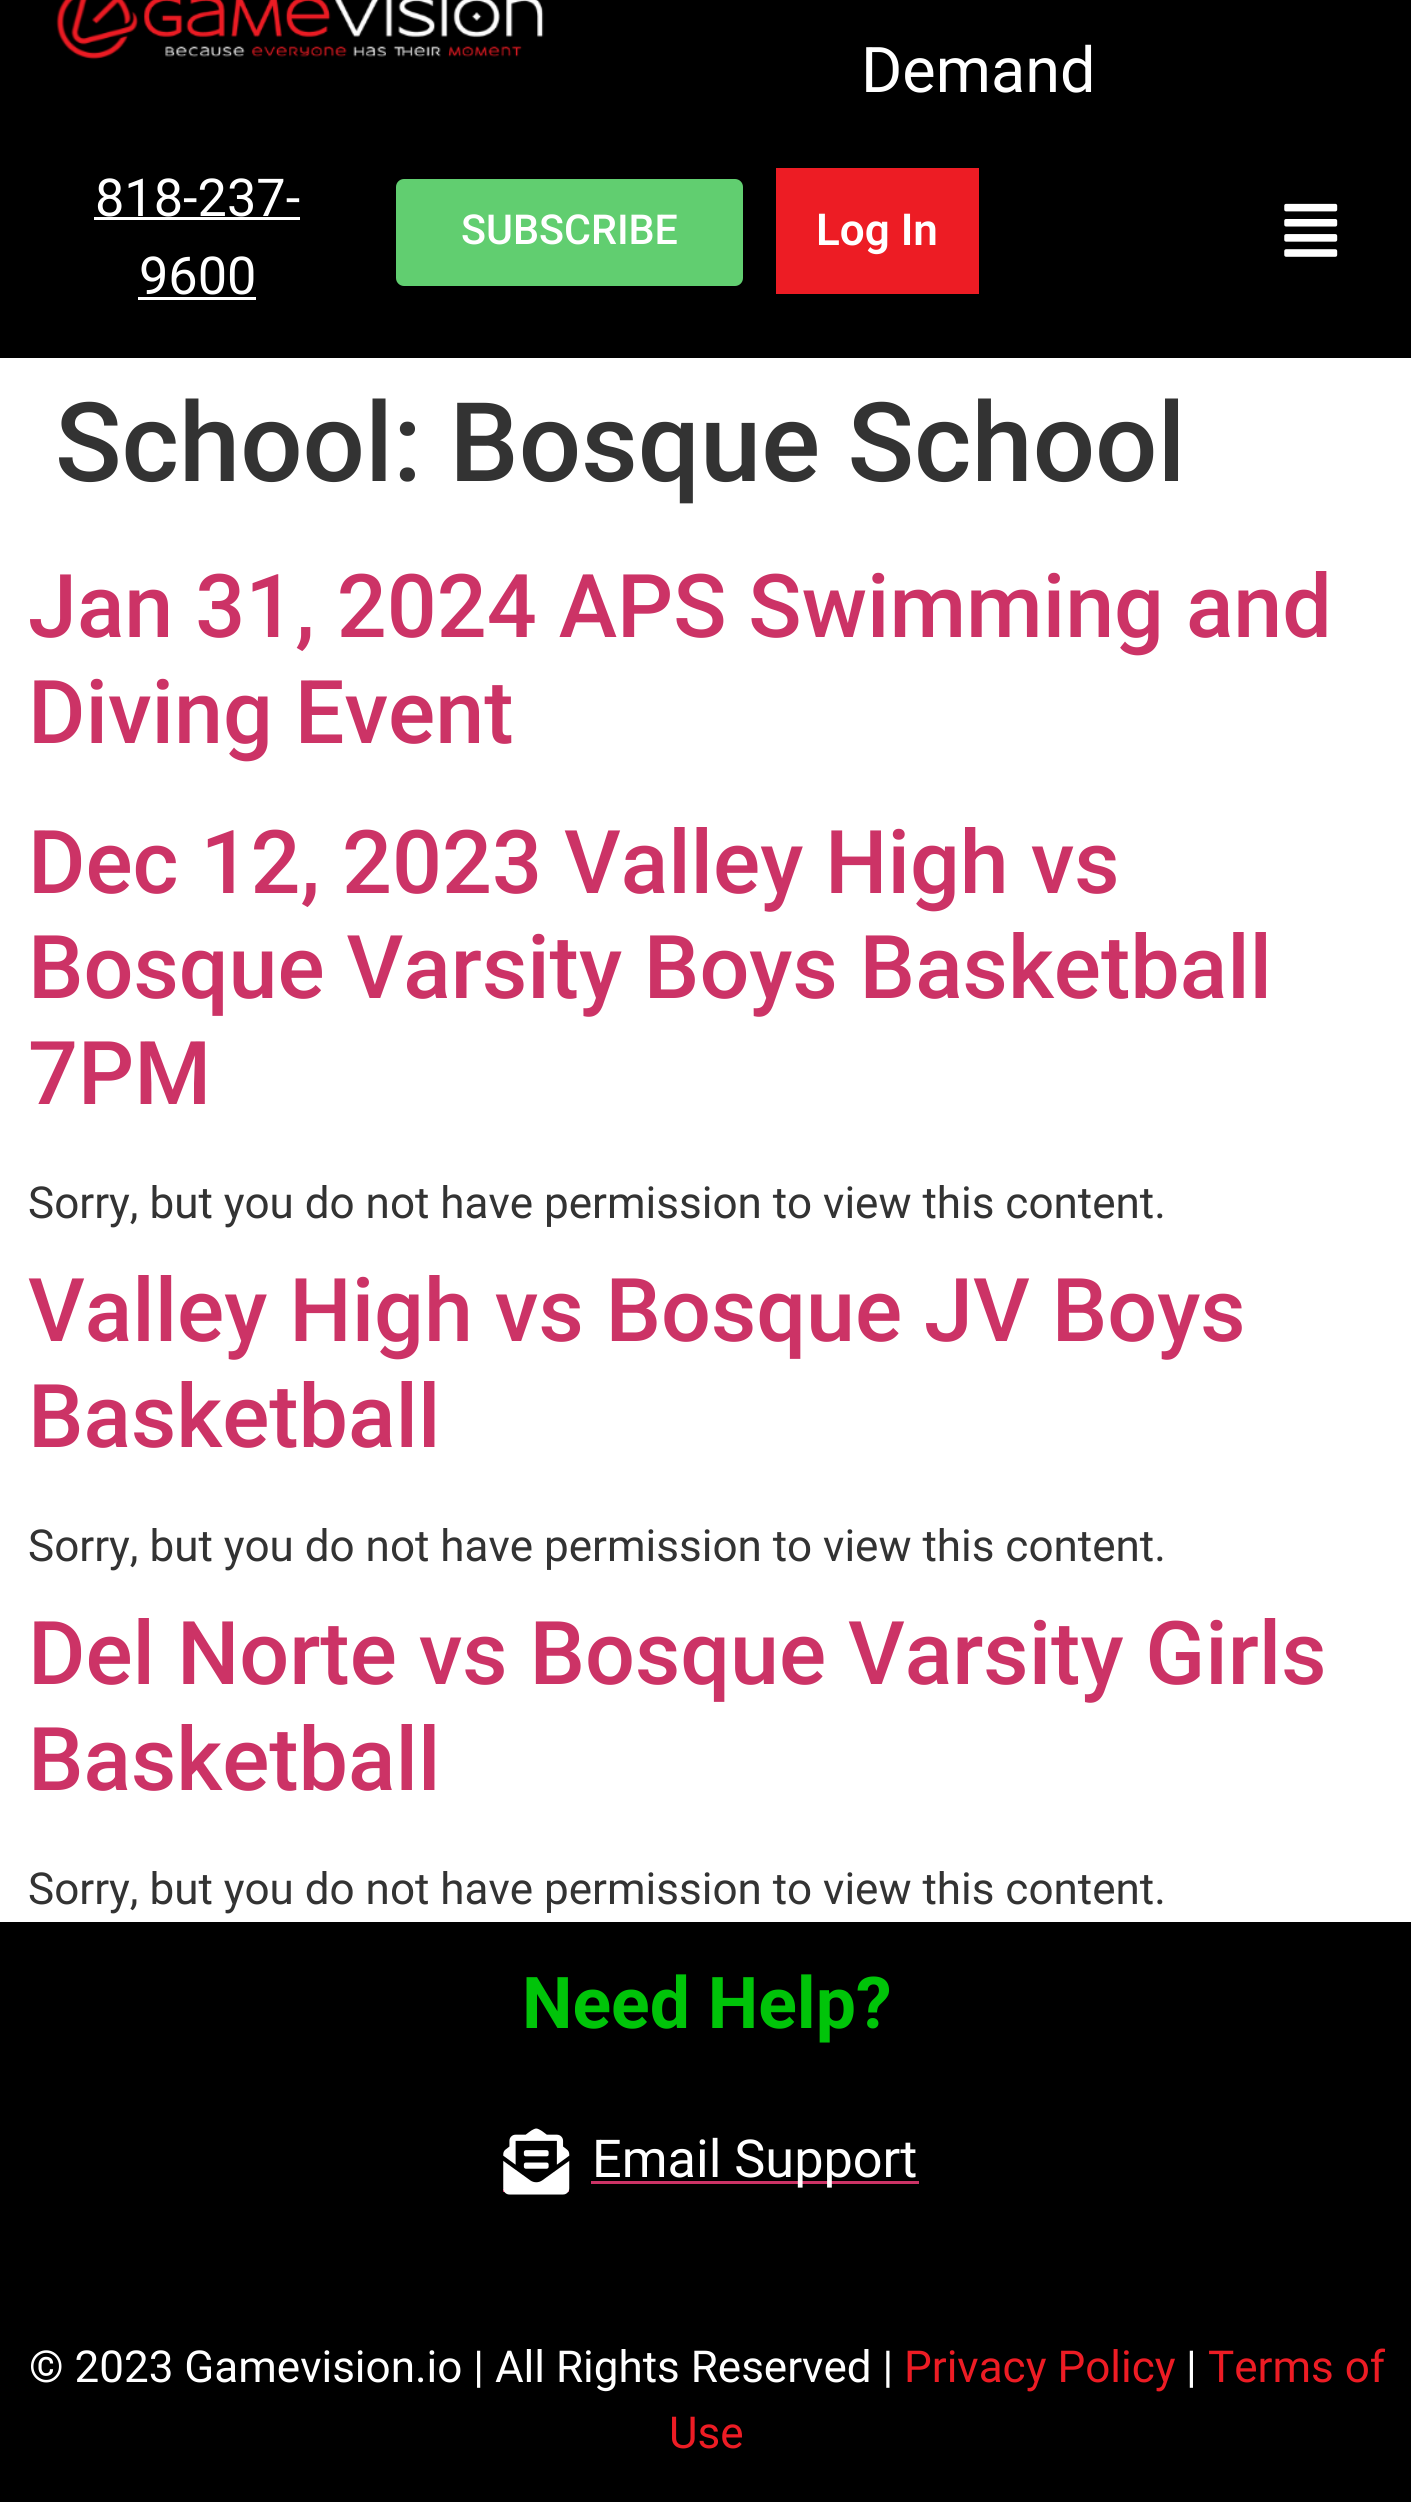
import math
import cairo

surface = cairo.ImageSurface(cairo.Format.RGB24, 1411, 2502)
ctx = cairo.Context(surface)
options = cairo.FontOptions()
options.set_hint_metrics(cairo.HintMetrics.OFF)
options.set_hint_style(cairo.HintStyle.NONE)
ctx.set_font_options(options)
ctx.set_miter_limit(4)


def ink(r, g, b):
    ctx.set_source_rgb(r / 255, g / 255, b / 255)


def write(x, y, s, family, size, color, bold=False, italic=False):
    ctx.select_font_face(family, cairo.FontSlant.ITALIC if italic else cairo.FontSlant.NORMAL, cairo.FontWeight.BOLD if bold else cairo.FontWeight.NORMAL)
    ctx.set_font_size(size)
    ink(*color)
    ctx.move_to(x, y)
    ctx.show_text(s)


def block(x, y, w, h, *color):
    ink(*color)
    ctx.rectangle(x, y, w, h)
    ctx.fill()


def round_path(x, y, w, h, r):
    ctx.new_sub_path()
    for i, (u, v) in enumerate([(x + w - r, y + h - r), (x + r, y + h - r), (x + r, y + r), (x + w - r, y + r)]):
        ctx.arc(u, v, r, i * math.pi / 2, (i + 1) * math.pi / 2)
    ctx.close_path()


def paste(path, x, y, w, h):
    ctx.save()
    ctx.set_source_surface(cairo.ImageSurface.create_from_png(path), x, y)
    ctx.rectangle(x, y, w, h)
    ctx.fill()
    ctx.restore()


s1 = dict(family="Roboto", size=63, color=(255, 255, 255))
s2 = dict(family="Roboto", size=52.25, color=(255, 255, 255))
s3 = dict(family="Roboto Medium", size=41.25, color=(255, 255, 255))
s4 = dict(family="Roboto SemiBold", size=44, color=(255, 255, 255))
s5 = dict(family="Roboto Medium", size=110, color=(51, 51, 51))
s6 = dict(family="Roboto Medium", size=88, color=(204, 51, 102))
s7 = dict(family="Roboto", size=44, color=(51, 51, 51))
s8 = dict(family="Roboto", size=71.5, color=(0, 196, 9), bold=True)
s9 = dict(family="Roboto", size=44, color=(255, 255, 255))
s10 = dict(family="Roboto", size=44, color=(237, 28, 36))

ink(255, 255, 255)
ctx.paint()
block(0, 0, 1411, 358, 0, 0, 0)
paste("pic1.png", 56, 0, 488, 60)
write(861, 92, "Demand", **s1)
write(95, 216, "818-237-", **s2)
block(94, 217, 206, 3, 255, 255, 255)
write(139, 294, "9600", **s2)
block(138, 297, 118, 3, 255, 255, 255)
ink(97, 206, 112)
round_path(396, 179, 347, 107, 8)
ctx.fill()
write(461, 244, "SUBSCRIBE", **s3)
block(776, 168, 203, 126, 237, 28, 36)
write(816, 245, "Log In", **s4)
paste("pic2.png", 1284, 203, 54, 54)
write(55, 481, "School: Bosque School", **s5)
write(28, 637, "Jan 31, 2024 APS Swimming and", **s6)
write(28, 743, "Diving Event", **s6)
write(28, 893, "Dec 12, 2023 Valley High vs", **s6)
write(28, 998, "Bosque Varsity Boys Basketball", **s6)
write(28, 1104, "7PM", **s6)
write(28, 1218, "Sorry, but you do not have permission to view this content.", **s7)
write(28, 1341, "Valley High vs Bosque JV Boys", **s6)
write(28, 1447, "Basketball", **s6)
write(28, 1561, "Sorry, but you do not have permission to view this content.", **s7)
write(28, 1684, "Del Norte vs Bosque Varsity Girls", **s6)
write(28, 1790, "Basketball", **s6)
write(28, 1904, "Sorry, but you do not have permission to view this content.", **s7)
block(0, 1922, 1411, 580, 0, 0, 0)
write(522, 2028, "Need Help?", **s8)
block(503, 2189, 66, 3, 204, 51, 102)
paste("pic3.png", 503, 2128, 67, 67)
block(591, 2181, 328, 3, 204, 51, 102)
write(592, 2177, "Email Support", **s2)
write(29, 2382, "© 2023 Gamevision.io | All Rights Reserved |", **s9)
write(904, 2382, "Privacy Policy", **s10)
write(1186, 2382, "|", **s9)
write(1208, 2382, "Terms of", **s10)
write(669, 2448, "Use", **s10)
surface.write_to_png("screenshot.png")
